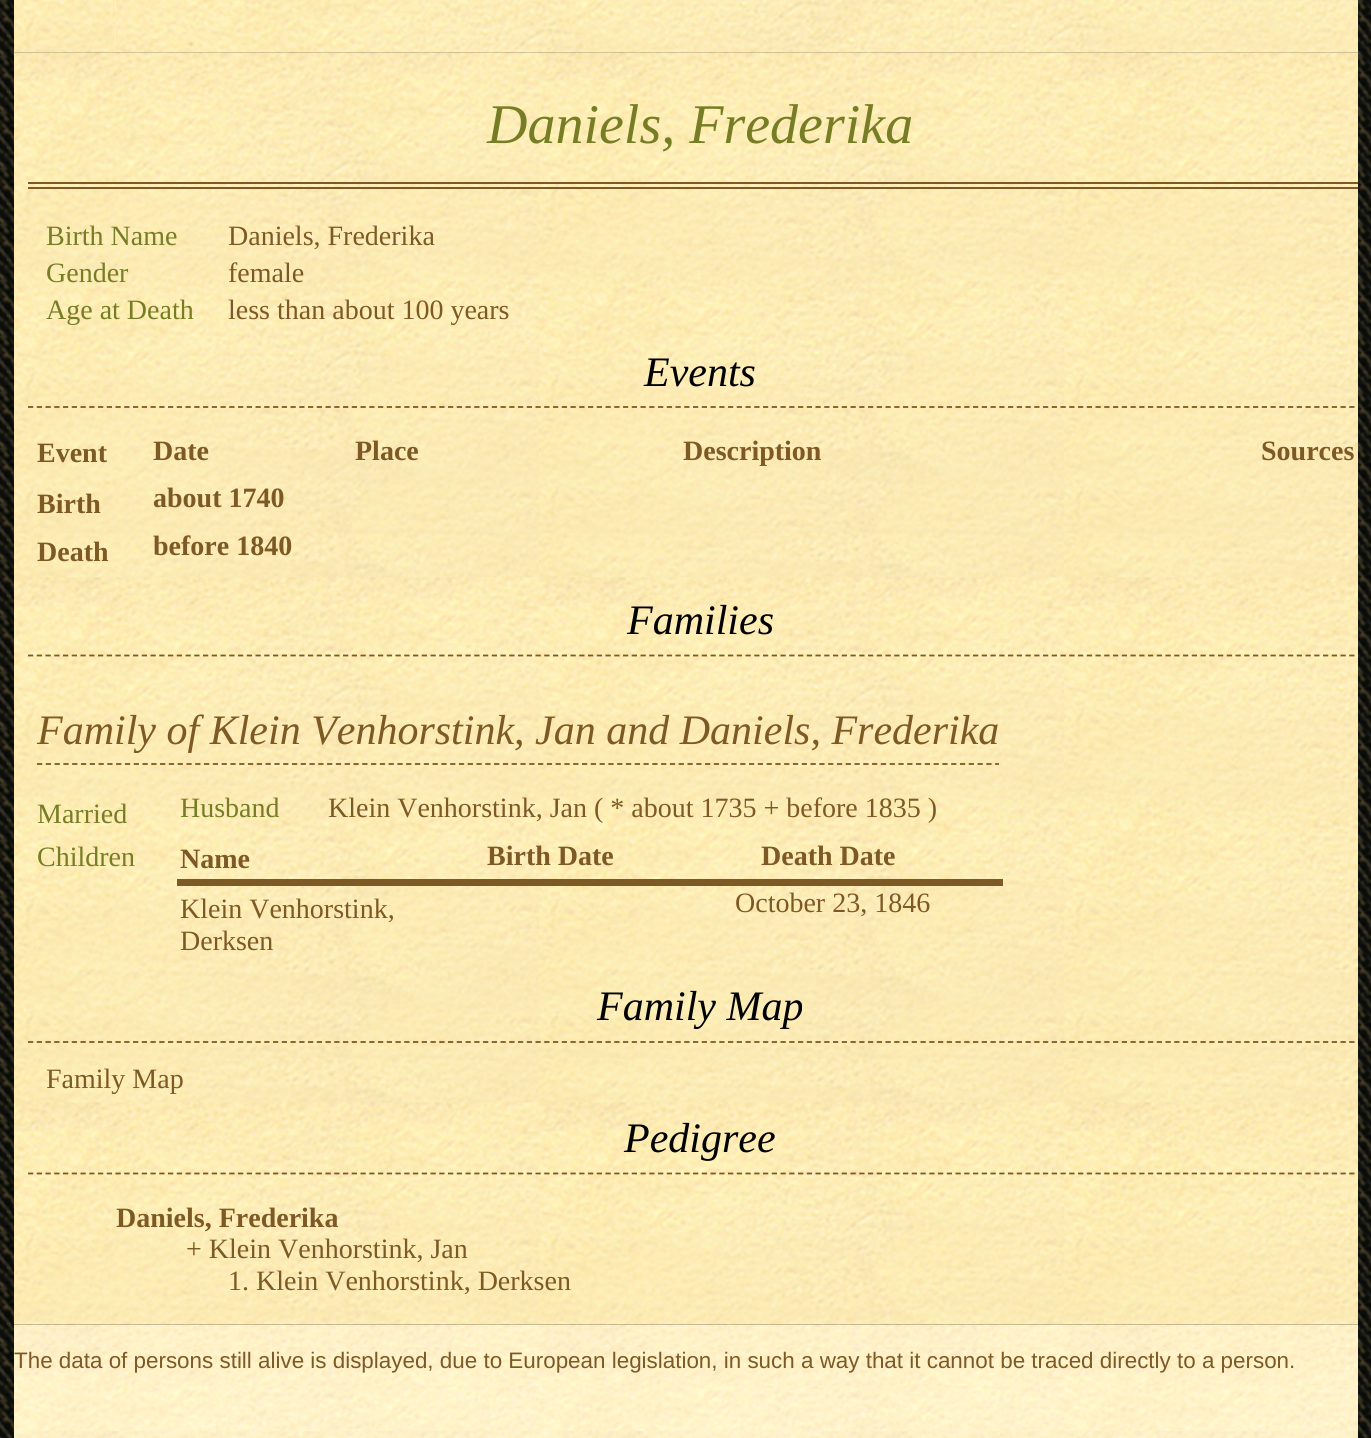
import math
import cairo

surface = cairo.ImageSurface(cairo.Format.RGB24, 1371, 1438)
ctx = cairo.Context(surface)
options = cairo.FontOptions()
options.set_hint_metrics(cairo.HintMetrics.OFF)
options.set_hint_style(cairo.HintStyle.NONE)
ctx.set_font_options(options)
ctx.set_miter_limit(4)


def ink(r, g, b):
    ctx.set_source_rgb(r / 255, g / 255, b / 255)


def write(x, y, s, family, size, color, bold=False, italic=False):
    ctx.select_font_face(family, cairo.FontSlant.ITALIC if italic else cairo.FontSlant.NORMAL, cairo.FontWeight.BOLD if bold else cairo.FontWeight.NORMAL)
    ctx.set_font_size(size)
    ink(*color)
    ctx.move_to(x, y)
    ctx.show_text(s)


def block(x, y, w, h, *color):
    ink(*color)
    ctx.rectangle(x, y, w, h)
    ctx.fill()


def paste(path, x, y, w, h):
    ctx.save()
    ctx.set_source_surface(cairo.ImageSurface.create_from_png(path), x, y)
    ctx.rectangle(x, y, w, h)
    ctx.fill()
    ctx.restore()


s1 = dict(family="Liberation Serif", size=56, color=(118, 125, 37), italic=True)
s2 = dict(family="Liberation Serif", size=28, color=(118, 125, 37))
s3 = dict(family="Liberation Serif", size=28, color=(125, 89, 37))
s4 = dict(family="Liberation Serif", size=42, color=(0, 0, 0), italic=True)
s5 = dict(family="Liberation Serif", size=28, color=(125, 89, 37), bold=True)
s6 = dict(family="Liberation Serif", size=42, color=(125, 89, 37), italic=True)
s7 = dict(family="Liberation Sans", size=22.4, color=(125, 89, 37))

ink(255, 255, 255)
ctx.paint()
paste("pic1.png", 0, 0, 1371, 1438)
paste("pic2.png", 14, 0, 1344, 53)
block(14, 0, 102, 49, 255, 242, 198)
paste("pic3.png", 14, 0, 102, 49)
paste("pic4.png", 14, 52, 1344, 1273)
block(28, 182, 1330, 2, 125, 89, 37)
block(28, 187, 1330, 2, 125, 89, 37)
write(487, 143, "Daniels, Frederika", **s1)
write(46, 245, "Birth Name", **s2)
write(228, 245, "Daniels, Frederika", **s3)
write(46, 282, "Gender", **s2)
write(228, 282, "female", **s3)
write(46, 319, "Age at Death", **s2)
write(228, 319, "less than about 100 years", **s3)
ctx.save()
ctx.rectangle(28, 329, 1330, 247)
ctx.clip()
ctx.new_path()
ctx.move_to(28, 407)
ctx.line_to(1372, 407)
ctx.set_line_width(1.8)
ctx.set_dash([5.25, 3.5])
ctx.stroke()
ctx.restore()
write(644, 386, "Events", **s4)
write(37, 462, "Event", **s5)
write(153, 460, "Date", **s5)
write(355, 460, "Place", **s5)
write(683, 460, "Description", **s5)
write(1261, 460, "Sources", **s5)
write(37, 513, "Birth", **s5)
write(153, 507, "about 1740", **s5)
write(37, 561, "Death", **s5)
write(153, 555, "before 1840", **s5)
ctx.save()
ctx.rectangle(28, 576, 1330, 387)
ctx.clip()
ctx.new_path()
ctx.move_to(28, 655.5)
ctx.line_to(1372, 655.5)
ctx.set_line_width(1.8)
ctx.set_dash([5.25, 3.5])
ctx.stroke()
ctx.restore()
write(627, 634, "Families", **s4)
ctx.new_path()
ctx.move_to(37, 764)
ctx.line_to(999, 764)
ink(125, 89, 37)
ctx.set_line_width(1.8)
ctx.set_dash([5.25, 3.54])
ctx.stroke()
write(37, 744, "Family of Klein Venhorstink, Jan and Daniels, Frederika", **s6)
write(37, 823, "Married", **s2)
write(180, 817, "Husband", **s2)
write(328, 817, "Klein Venhorstink, Jan ( * about 1735 + before 1835 )", **s3)
write(37, 866, "Children", **s2)
write(180, 868, "Name", **s5)
write(487, 865, "Birth Date", **s5)
block(177, 879, 826, 7, 125, 89, 37)
write(761, 865, "Death Date", **s5)
write(180, 918, "Klein Venhorstink,", **s3)
write(180, 950, "Derksen", **s3)
write(735, 912, "October 23, 1846", **s3)
ctx.save()
ctx.rectangle(28, 963, 1330, 133)
ctx.clip()
ctx.new_path()
ctx.move_to(28, 1042)
ctx.line_to(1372, 1042)
ctx.set_dash([5.25, 3.5])
ctx.stroke()
ctx.restore()
write(597, 1020, "Family Map", **s4)
write(46, 1088, "Family Map", **s3)
ctx.save()
ctx.rectangle(28, 1096, 1330, 229)
ctx.clip()
ctx.new_path()
ctx.move_to(28, 1173.5)
ctx.line_to(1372, 1173.5)
ctx.set_dash([5.25, 3.5])
ctx.stroke()
ctx.restore()
write(624, 1152, "Pedigree", **s4)
write(116, 1227, "Daniels, Frederika", **s5)
write(186, 1258, "+ Klein Venhorstink, Jan", **s3)
write(228, 1290, "1. Klein Venhorstink, Derksen", **s3)
paste("pic5.png", 14, 1324, 1344, 114)
paste("pic6.png", 14, 1347, 1344, 39)
write(14, 1368, "The data of persons still alive is displayed, due to European legislation, in such a way that it cannot be traced directly to a person.", **s7)
block(703, 1432, 1, 6, 255, 242, 198)
paste("pic7.png", 32, 1431, 671, 7)
paste("pic8.png", 821, 1431, 537, 7)
surface.write_to_png("screenshot.png")
